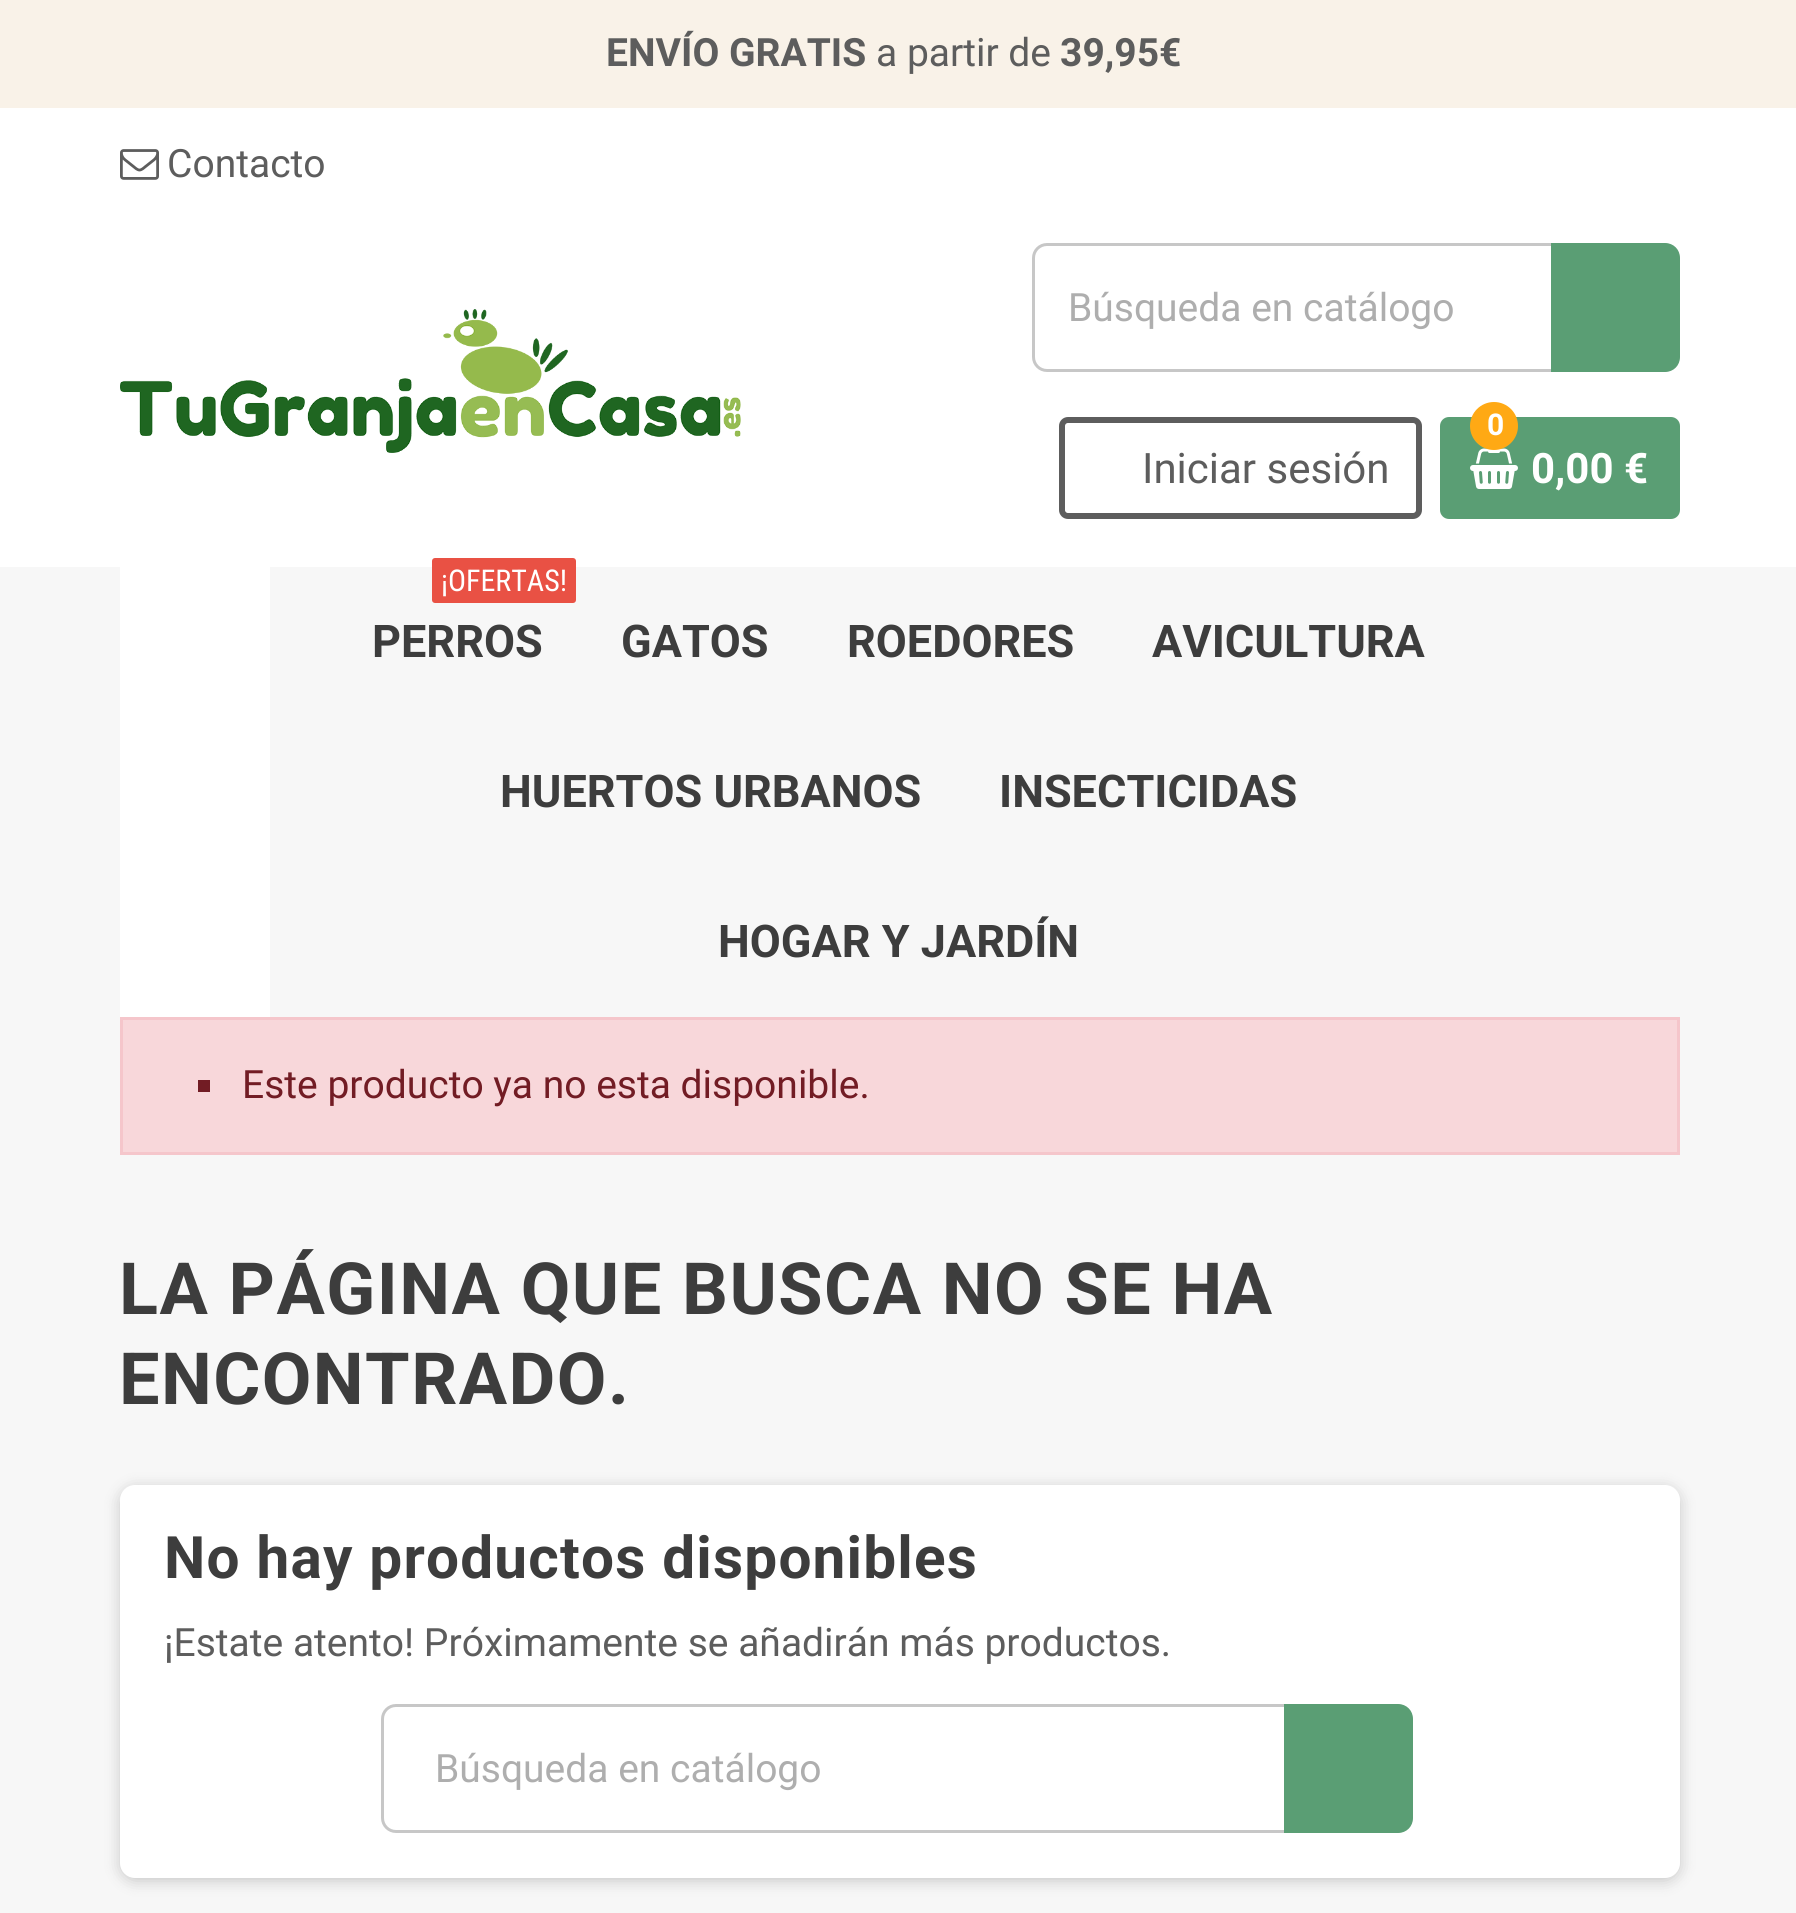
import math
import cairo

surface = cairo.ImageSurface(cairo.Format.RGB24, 1796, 1913)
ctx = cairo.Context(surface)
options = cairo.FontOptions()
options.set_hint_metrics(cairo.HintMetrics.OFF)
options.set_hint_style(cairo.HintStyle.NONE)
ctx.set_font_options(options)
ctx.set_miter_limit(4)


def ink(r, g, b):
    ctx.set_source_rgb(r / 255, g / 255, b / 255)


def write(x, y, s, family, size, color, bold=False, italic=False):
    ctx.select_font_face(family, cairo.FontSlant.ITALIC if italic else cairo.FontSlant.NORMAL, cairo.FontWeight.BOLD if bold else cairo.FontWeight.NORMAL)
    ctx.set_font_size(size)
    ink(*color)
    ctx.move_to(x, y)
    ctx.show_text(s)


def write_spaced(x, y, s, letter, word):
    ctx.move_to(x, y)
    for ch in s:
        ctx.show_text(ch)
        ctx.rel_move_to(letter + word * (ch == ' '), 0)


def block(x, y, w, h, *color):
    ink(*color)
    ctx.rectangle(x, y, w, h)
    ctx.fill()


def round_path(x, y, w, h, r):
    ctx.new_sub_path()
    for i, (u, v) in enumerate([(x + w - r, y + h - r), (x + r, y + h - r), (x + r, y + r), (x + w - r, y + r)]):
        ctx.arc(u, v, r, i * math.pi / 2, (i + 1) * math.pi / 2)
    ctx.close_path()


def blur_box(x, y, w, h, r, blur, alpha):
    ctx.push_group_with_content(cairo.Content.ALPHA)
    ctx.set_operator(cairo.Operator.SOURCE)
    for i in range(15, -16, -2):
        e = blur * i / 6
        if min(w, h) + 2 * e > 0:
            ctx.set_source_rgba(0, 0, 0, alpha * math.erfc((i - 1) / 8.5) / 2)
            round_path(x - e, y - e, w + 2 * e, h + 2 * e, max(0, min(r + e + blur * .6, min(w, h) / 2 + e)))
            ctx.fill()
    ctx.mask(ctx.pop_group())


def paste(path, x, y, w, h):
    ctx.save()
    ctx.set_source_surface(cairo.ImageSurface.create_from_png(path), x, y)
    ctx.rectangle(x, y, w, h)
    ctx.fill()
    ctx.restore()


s1 = dict(family="Roboto", size=39, color=(93, 93, 93), bold=True)
s2 = dict(family="Roboto", size=39, color=(93, 93, 93))
s3 = dict(family="Roboto", size=39, color=(174, 174, 174))
s4 = dict(family="Roboto", size=42, color=(93, 93, 93))
s5 = dict(family="Roboto", size=30, color=(255, 255, 255), bold=True)
s6 = dict(family="Roboto", size=42, color=(255, 255, 255), bold=True)
s7 = dict(family="Roboto Condensed", size=30, color=(255, 255, 255))
s8 = dict(family="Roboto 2", size=45, color=(61, 61, 61), bold=True)
s9 = dict(family="Roboto", size=39, color=(114, 28, 36))

ink(255, 255, 255)
ctx.paint()
block(0, 0, 1796, 108, 249, 242, 232)
write(606, 66, "ENVÍO GRATIS", **s1)
write(876, 66, "a partir de", **s2)
write(1060, 66, "39,95€", **s1)
paste("pic1.png", 120, 149, 39, 31)
write(167, 177, "Contacto", **s2)
paste("pic2.png", 120, 309, 621, 144)
round_path(1033.5, 244.5, 642, 126, 13.5)
ink(199, 199, 199)
ctx.set_line_width(3)
ctx.stroke()
write(1068, 321, "Búsqueda en catálogo", **s3)
ink(90, 158, 116)
ctx.new_path()
ctx.move_to(1551, 243)
ctx.line_to(1665, 243)
ctx.curve_to(1673.5, 243, 1680, 249.5, 1680, 258)
ctx.line_to(1680, 357)
ctx.curve_to(1680, 365.5, 1673.5, 372, 1665, 372)
ctx.line_to(1551, 372)
ctx.close_path()
ctx.fill()
round_path(1062, 420, 357, 96, 6)
ink(93, 93, 93)
ctx.set_line_width(6)
ctx.stroke()
write(1142, 483, "Iniciar sesión", **s4)
ink(90, 158, 116)
round_path(1440, 417, 240, 102, 9)
ctx.fill()
paste("pic3.png", 1470, 448, 48, 41)
ink(255, 169, 20)
ctx.arc(1494, 426, 24, 0, 2 * math.pi)
ctx.fill()
write(1487, 435, "0", **s5)
write(1531, 483, "0,00 €", **s6)
block(0, 567, 1796, 1346, 247, 247, 247)
block(120, 567, 150, 450, 255, 255, 255)
ink(233, 81, 68)
round_path(432, 558, 144, 45, 3)
ctx.fill()
write(441, 591, "¡OFERTAS!", **s7)
write(372, 657, "PERROS", **s8)
write(621, 657, "GATOS", **s8)
write(847, 657, "ROEDORES", **s8)
write(1152, 657, "AVICULTURA", **s8)
write(500, 807, "HUERTOS URBANOS", **s8)
write(999, 807, "INSECTICIDAS", **s8)
write(718, 957, "HOGAR Y JARDÍN", **s8)
ink(248, 215, 218)
ctx.rectangle(121.5, 1018.5, 1557, 135)
ctx.fill_preserve()
ink(245, 198, 203)
ctx.set_line_width(3)
ctx.stroke()
block(198, 1080, 12, 12, 114, 28, 36)
write(242, 1098, "Este producto ya no esta disponible.", **s9)
ctx.select_font_face("Roboto 2", cairo.FontSlant.NORMAL, cairo.FontWeight.BOLD)
ctx.set_font_size(72)
ink(61, 61, 61)
write_spaced(119, 1314, "LA PÁGINA QUE BUSCA NO SE HA", 1.45, 0)
write_spaced(119, 1404, "ENCONTRADO.", 1.45, 0)
ink(0, 0, 0)
blur_box(120, 1488, 1560, 393, 15, 7.5, 0.2)
ink(255, 255, 255)
round_path(120, 1485, 1560, 393, 15)
ctx.fill()
ctx.set_font_size(58.5)
ink(61, 61, 61)
write_spaced(164, 1578, "No hay productos disponibles", 1.2, 0)
write(164, 1656, "¡Estate atento! Próximamente se añadirán más productos.", **s2)
round_path(382.5, 1705.5, 1026, 126, 13.5)
ink(199, 199, 199)
ctx.stroke()
write(435, 1782, "Búsqueda en catálogo", **s3)
ink(90, 158, 116)
ctx.new_path()
ctx.move_to(1284, 1704)
ctx.line_to(1398, 1704)
ctx.curve_to(1406.5, 1704, 1413, 1710.5, 1413, 1719)
ctx.line_to(1413, 1818)
ctx.curve_to(1413, 1826.5, 1406.5, 1833, 1398, 1833)
ctx.line_to(1284, 1833)
ctx.close_path()
ctx.fill()
surface.write_to_png("screenshot.png")
